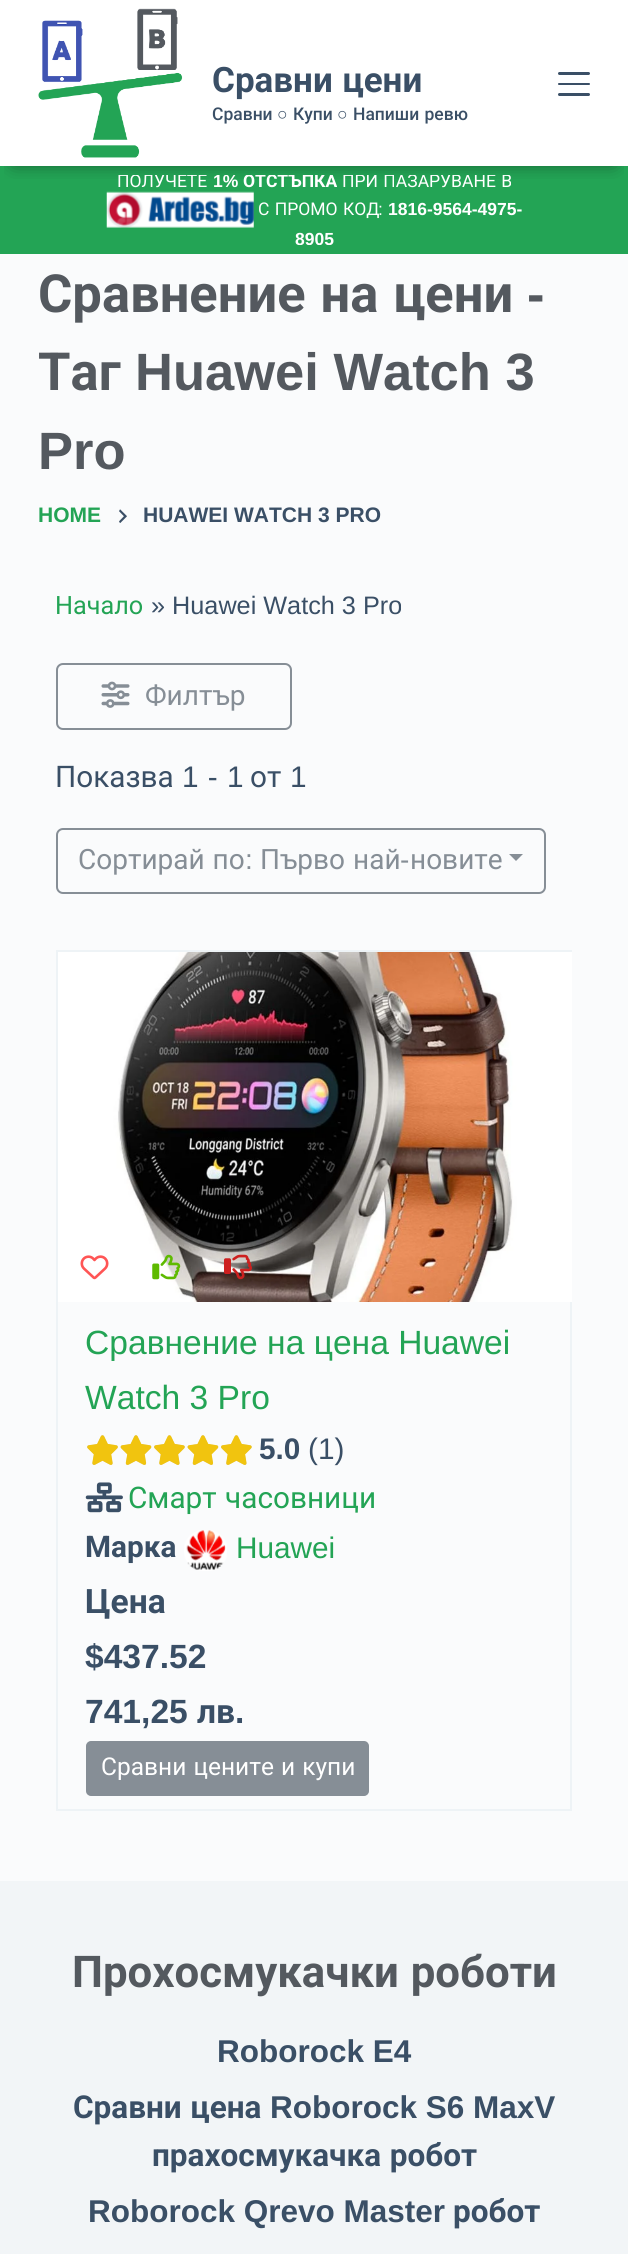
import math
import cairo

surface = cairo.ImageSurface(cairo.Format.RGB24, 628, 2254)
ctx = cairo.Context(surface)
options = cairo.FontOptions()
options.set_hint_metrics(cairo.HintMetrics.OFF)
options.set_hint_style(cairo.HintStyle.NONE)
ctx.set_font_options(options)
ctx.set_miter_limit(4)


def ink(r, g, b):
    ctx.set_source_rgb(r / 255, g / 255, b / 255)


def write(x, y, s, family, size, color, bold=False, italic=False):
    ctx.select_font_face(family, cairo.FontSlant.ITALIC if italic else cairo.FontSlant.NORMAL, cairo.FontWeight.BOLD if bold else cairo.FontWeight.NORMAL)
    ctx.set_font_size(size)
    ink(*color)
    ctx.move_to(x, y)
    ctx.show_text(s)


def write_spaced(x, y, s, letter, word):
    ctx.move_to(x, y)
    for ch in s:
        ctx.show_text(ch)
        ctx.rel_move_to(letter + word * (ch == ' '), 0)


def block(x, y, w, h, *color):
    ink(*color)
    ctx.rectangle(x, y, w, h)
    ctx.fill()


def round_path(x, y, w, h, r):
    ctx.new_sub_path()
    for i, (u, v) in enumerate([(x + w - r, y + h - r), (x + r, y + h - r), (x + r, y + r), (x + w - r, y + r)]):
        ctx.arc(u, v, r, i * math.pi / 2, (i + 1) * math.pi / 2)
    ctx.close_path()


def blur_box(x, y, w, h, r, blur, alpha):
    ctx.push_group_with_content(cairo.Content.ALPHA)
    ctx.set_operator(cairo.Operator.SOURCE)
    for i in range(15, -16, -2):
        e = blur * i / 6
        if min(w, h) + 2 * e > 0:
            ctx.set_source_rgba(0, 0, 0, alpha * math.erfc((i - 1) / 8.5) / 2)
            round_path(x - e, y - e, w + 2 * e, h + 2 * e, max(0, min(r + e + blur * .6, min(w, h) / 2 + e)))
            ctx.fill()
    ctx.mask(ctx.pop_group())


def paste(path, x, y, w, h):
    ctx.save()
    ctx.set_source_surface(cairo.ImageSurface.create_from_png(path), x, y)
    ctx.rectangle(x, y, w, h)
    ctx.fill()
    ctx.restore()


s1 = dict(family="Roboto Medium", size=17.5, color=(58, 79, 102))
s2 = dict(family="Liberation Sans", size=17.5, color=(58, 79, 102))
s3 = dict(family="Roboto", size=17.5, color=(255, 255, 255))
s4 = dict(family="Liberation Sans", size=17.5, color=(255, 255, 255), bold=True)
s5 = dict(family="Roboto", size=17.5, color=(255, 255, 255), bold=True)
s6 = dict(family="Liberation Sans", size=17.5, color=(255, 255, 255))
s7 = dict(family="Liberation Sans", size=52.5, color=(84, 89, 95), bold=True)
s8 = dict(family="Roboto", size=52.5, color=(84, 89, 95), bold=True)
s9 = dict(family="Liberation Sans", size=21, color=(35, 164, 85), bold=True)
s10 = dict(family="Liberation Sans", size=21, color=(58, 79, 102), bold=True)
s11 = dict(family="Roboto", size=25.25, color=(35, 164, 85))
s12 = dict(family="Liberation Sans", size=25.25, color=(58, 79, 102))
s13 = dict(family="Roboto", size=28, color=(134, 142, 150))
s14 = dict(family="Roboto", size=29.75, color=(58, 79, 102))
s15 = dict(family="Liberation Sans", size=29.75, color=(58, 79, 102))
s16 = dict(family="Liberation Sans", size=28, color=(134, 142, 150))
s17 = dict(family="Liberation Sans", size=33.6, color=(35, 164, 85))
s18 = dict(family="Liberation Sans", size=29.75, color=(58, 79, 102), bold=True)
s19 = dict(family="Roboto", size=29.75, color=(58, 79, 102), bold=True)
s20 = dict(family="Liberation Sans", size=29.75, color=(35, 164, 85))
s21 = dict(family="Roboto", size=33.6, color=(58, 79, 102), bold=True)
s22 = dict(family="Liberation Sans", size=33.6, color=(58, 79, 102), bold=True)
s23 = dict(family="Liberation Sans", size=31.5, color=(58, 79, 102), bold=True)
s24 = dict(family="Roboto", size=31.5, color=(58, 79, 102), bold=True)

ink(250, 251, 252)
ctx.paint()
block(0, 0, 628, 166, 255, 255, 255)
block(0, 166, 628, 88, 35, 164, 85)
ctx.save()
ctx.rectangle(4, 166, 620, 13)
ctx.clip()
ink(0, 0, 0)
blur_box(14, 25, 600, 138, 0, 9, 0.5)
ctx.restore()
paste("pic1.png", 38, 8, 145, 150)
ctx.select_font_face("Roboto", cairo.FontSlant.NORMAL, cairo.FontWeight.BOLD)
ctx.set_font_size(35)
ink(58, 79, 102)
write_spaced(212, 92, "Сравни цени", 0, 1)
write(212, 120, "Сравни", **s1)
write(277, 120, "○", **s2)
write(293, 120, "Купи", **s1)
write(337, 120, "○", **s2)
ctx.select_font_face("Roboto Medium")
write_spaced(353, 120, "Напиши ревю", 0, 1)
round_path(558, 72, 32, 3, 1.5)
ctx.fill()
round_path(558, 83, 32, 2, 1)
ctx.fill()
round_path(558, 93, 32, 3, 1.5)
ctx.fill()
ctx.save()
ctx.rectangle(39, 175, 551, 70)
ctx.clip()
write(117, 187, "ПОЛУЧЕТЕ", **s3)
write(213, 187, "1%", **s4)
write(243, 187, "ОТСТЪПКА", **s5)
ctx.select_font_face("Roboto")
write_spaced(342, 187, "ПРИ ПАЗАРУВАНЕ В", 0, 1)
ctx.restore()
paste("pic2.png", 106, 191, 148, 37)
ctx.select_font_face("Roboto")
ink(255, 255, 255)
write_spaced(258, 215, "С ПРОМО КОД", 0, 1)
write(378, 215, ":", **s6)
write(388, 215, "1816-9564-4975-", **s4)
ctx.save()
ctx.rectangle(39, 175, 551, 70)
ctx.clip()
write(295, 245, "8905", **s4)
ctx.restore()
ctx.select_font_face("Roboto", cairo.FontSlant.NORMAL, cairo.FontWeight.BOLD)
ctx.set_font_size(52.5)
ink(84, 89, 95)
write_spaced(38, 312, "Сравнение на цени", 0, 2)
write(527, 312, "-", **s7)
write(38, 390, "Таг", **s8)
write(135, 390, "Huawei Watch 3", **s7)
write(38, 469, "Pro", **s7)
write(38, 522, "HOME", **s9)
paste("pic3.png", 119, 509, 8, 14)
write(143, 522, "HUAWEI WATCH 3 PRO", **s10)
write(55, 614, "Начало", **s11)
write(151, 614, "» Huawei Watch 3 Pro", **s12)
round_path(57, 664, 234, 65, 6)
ink(134, 142, 150)
ctx.stroke()
paste("pic4.png", 101, 681, 29, 27)
write(145, 705, "Филтър", **s13)
write(55, 787, "Показва", **s14)
ctx.select_font_face("Liberation Sans")
write_spaced(182, 787, "1 - 1", 0, 1)
write(250, 787, "от", **s14)
write(290, 787, "1", **s15)
round_path(57, 829, 488, 64, 6)
ink(134, 142, 150)
ctx.stroke()
ctx.select_font_face("Roboto")
ctx.set_font_size(28)
write_spaced(78, 869, "Сортирай по", 0, 1)
write(245, 869, ":", **s16)
ctx.select_font_face("Roboto")
write_spaced(260, 869, "Първо най", 0, 1)
write(410, 869, "новите", **s13)
ctx.new_path()
ctx.move_to(509, 854)
ctx.line_to(523, 854)
ctx.line_to(516, 861)
ctx.close_path()
ctx.fill()
write(400, 869, "-", **s16)
ctx.rectangle(57, 951, 514, 859)
ink(238, 243, 246)
ctx.stroke()
paste("pic5.png", 58, 952, 514, 350)
paste("pic6.png", 80, 1255, 29, 25)
paste("pic7.png", 152, 1254, 29, 26)
paste("pic8.png", 224, 1254, 28, 26)
write(85, 1354, "Сравнение на цена Huawei", **s17)
write(85, 1409, "Watch 3 Pro", **s17)
paste("pic9.png", 87, 1435, 165, 30)
paste("pic10.png", 87, 1435, 165, 30)
write(259, 1459, "5.0", **s18)
write(308, 1459, "(1)", **s15)
paste("pic11.png", 85, 1482, 38, 31)
ctx.select_font_face("Roboto")
ink(35, 164, 85)
write_spaced(128, 1508, "Смарт часовници", 0, 1)
write(85, 1557, "Марка", **s19)
paste("pic12.png", 184, 1530, 43, 41)
write(236, 1558, "Huawei", **s20)
write(85, 1613, "Цена", **s21)
write(85, 1668, "$437.52", **s22)
write(85, 1723, "741,25", **s22)
write(197, 1723, "лв", **s21)
write(235, 1723, ".", **s22)
ink(134, 142, 150)
round_path(87, 1742, 281, 53, 4)
ctx.fill_preserve()
ctx.stroke()
ctx.select_font_face("Roboto")
ctx.set_font_size(24.5)
ink(255, 255, 255)
write_spaced(101, 1775, "Сравни цените и купи", 0, 1)
block(0, 1881, 628, 373, 242, 245, 247)
ctx.select_font_face("Roboto", cairo.FontSlant.NORMAL, cairo.FontWeight.BOLD)
ctx.set_font_size(43.75)
ink(84, 89, 95)
write_spaced(72, 1987, "Прохосмукачки роботи", 0, 1)
write(217, 2062, "Roborock E4", **s23)
ctx.select_font_face("Roboto", cairo.FontSlant.NORMAL, cairo.FontWeight.BOLD)
write_spaced(73, 2118, "Сравни цена", 0, 1)
write(270, 2118, "Roborock S6 MaxV", **s23)
ctx.select_font_face("Roboto", cairo.FontSlant.NORMAL, cairo.FontWeight.BOLD)
write_spaced(152, 2166, "прахосмукачка робот", 0, 1)
write(88, 2222, "Roborock Qrevo Master", **s23)
write(453, 2222, "робот", **s24)
surface.write_to_png("screenshot.png")
